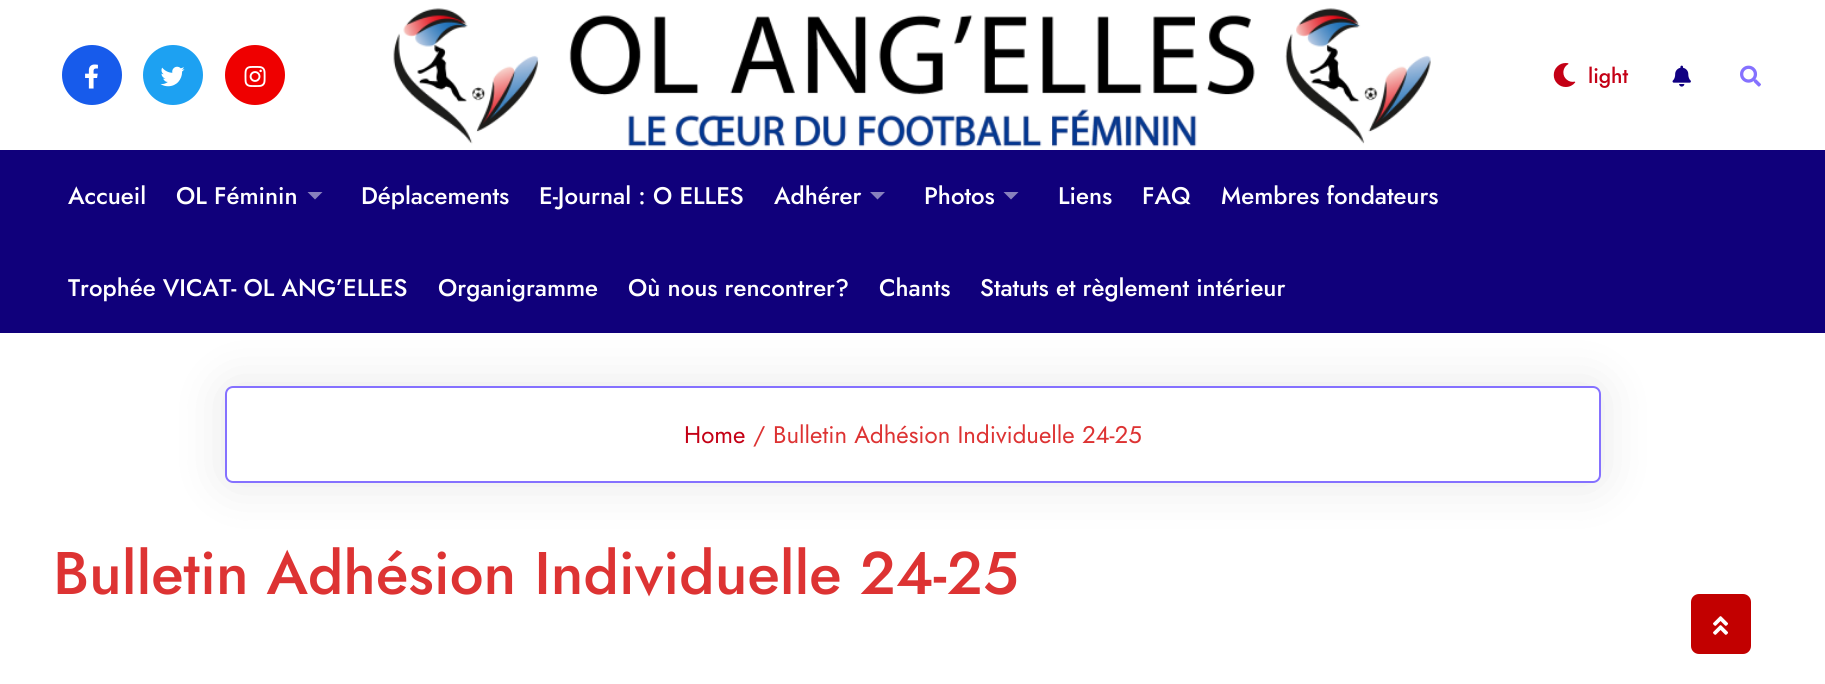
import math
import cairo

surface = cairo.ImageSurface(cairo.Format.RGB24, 1825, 684)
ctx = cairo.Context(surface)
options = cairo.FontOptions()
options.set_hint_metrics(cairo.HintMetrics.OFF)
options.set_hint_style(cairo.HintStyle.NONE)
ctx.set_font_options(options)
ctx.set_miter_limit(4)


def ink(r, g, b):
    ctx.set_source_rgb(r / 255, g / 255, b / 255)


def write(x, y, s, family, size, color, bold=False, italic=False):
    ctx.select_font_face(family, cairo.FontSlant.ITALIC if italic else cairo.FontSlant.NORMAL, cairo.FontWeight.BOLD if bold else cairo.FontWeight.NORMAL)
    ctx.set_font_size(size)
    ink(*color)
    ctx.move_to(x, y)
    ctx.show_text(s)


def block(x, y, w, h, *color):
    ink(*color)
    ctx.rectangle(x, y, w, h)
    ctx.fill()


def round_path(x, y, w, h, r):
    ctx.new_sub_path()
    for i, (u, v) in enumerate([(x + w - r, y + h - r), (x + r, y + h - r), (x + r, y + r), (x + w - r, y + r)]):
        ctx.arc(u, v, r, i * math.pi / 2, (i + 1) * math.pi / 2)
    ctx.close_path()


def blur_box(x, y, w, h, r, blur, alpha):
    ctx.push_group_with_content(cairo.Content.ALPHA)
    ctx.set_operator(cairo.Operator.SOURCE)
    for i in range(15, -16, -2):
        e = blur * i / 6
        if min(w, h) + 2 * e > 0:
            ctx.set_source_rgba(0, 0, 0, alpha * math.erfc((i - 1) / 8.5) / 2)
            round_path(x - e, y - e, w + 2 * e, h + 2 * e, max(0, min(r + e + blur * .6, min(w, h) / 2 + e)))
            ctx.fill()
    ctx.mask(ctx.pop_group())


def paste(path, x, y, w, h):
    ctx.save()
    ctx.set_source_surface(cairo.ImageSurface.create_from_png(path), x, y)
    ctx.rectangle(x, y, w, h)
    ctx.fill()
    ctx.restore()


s1 = dict(family="Jost Medium", size=21, color=(196, 0, 21))
s2 = dict(family="Jost Medium", size=24, color=(255, 255, 255))
s3 = dict(family="Jost", size=24, color=(196, 0, 21))
s4 = dict(family="Jost", size=24, color=(221, 51, 51))
s5 = dict(family="Jost Medium", size=60, color=(221, 51, 51))

ink(255, 255, 255)
ctx.paint()
paste("pic1.png", 393, 8, 1038, 139)
ink(23, 91, 235)
ctx.arc(92, 75, 30, 0, 2 * math.pi)
ctx.fill()
paste("pic2.png", 85, 64, 13, 25)
ink(29, 161, 242)
ctx.arc(173, 75, 30, 0, 2 * math.pi)
ctx.fill()
paste("pic3.png", 160, 66, 25, 21)
ink(239, 0, 0)
ctx.arc(255, 75, 30, 0, 2 * math.pi)
ctx.fill()
paste("pic4.png", 244, 66, 22, 21)
paste("pic5.png", 1553, 63, 23, 24)
write(1588, 83, "light", **s1)
paste("pic6.png", 1672, 65, 19, 22)
paste("pic7.png", 1740, 65, 21, 22)
ctx.save()
ctx.set_fill_rule(cairo.FillRule.EVEN_ODD)
ctx.new_path()
ctx.move_to(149, 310)
ctx.line_to(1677, 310)
ctx.line_to(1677, 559)
ctx.line_to(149, 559)
ctx.close_path()
ctx.move_to(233, 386)
ctx.line_to(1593, 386)
ctx.curve_to(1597.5, 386, 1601, 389.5, 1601, 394)
ctx.line_to(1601, 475)
ctx.curve_to(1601, 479.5, 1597.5, 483, 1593, 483)
ctx.line_to(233, 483)
ctx.curve_to(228.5, 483, 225, 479.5, 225, 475)
ctx.line_to(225, 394)
ctx.curve_to(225, 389.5, 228.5, 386, 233, 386)
ctx.close_path()
ctx.clip()
ink(0, 0, 0)
blur_box(225, 386, 1376, 97, 8, 25, 0.1)
ctx.restore()
block(0, 150, 1825, 183, 16, 0, 123)
write(68, 204, "Accueil", **s2)
write(176, 204, "OL Féminin", **s2)
ink(136, 128, 189)
ctx.new_path()
ctx.move_to(307.5, 192)
ctx.line_to(322.5, 192)
ctx.line_to(315, 199.5)
ctx.close_path()
ctx.fill()
write(361, 204, "Déplacements", **s2)
write(539, 204, "E-Journal : O ELLES", **s2)
write(774, 204, "Adhérer", **s2)
ink(136, 128, 189)
ctx.new_path()
ctx.move_to(870, 192)
ctx.line_to(885, 192)
ctx.line_to(877.5, 199.5)
ctx.close_path()
ctx.fill()
write(924, 204, "Photos", **s2)
ink(136, 128, 189)
ctx.new_path()
ctx.move_to(1003.5, 192)
ctx.line_to(1018.5, 192)
ctx.line_to(1011, 199.5)
ctx.close_path()
ctx.fill()
write(1058, 204, "Liens", **s2)
write(1142, 204, "FAQ", **s2)
write(1221, 204, "Membres fondateurs", **s2)
write(68, 296, "Trophée VICAT- OL ANG’ELLES", **s2)
write(438, 296, "Organigramme", **s2)
write(628, 296, "Où nous rencontrer?", **s2)
write(879, 296, "Chants", **s2)
write(980, 296, "Statuts et règlement intérieur", **s2)
round_path(226, 387, 1374, 95, 7)
ink(133, 113, 255)
ctx.stroke()
write(684, 443, "Home", **s3)
write(753, 443, "/", **s4)
write(773, 443, "Bulletin Adhésion Individuelle 24-25", **s4)
write(53, 594, "Bulletin Adhésion Individuelle 24-25", **s5)
ink(194, 0, 0)
round_path(1691, 594, 60, 60, 8)
ctx.fill()
paste("pic8.png", 1713, 616, 15, 19)
surface.write_to_png("screenshot.png")
